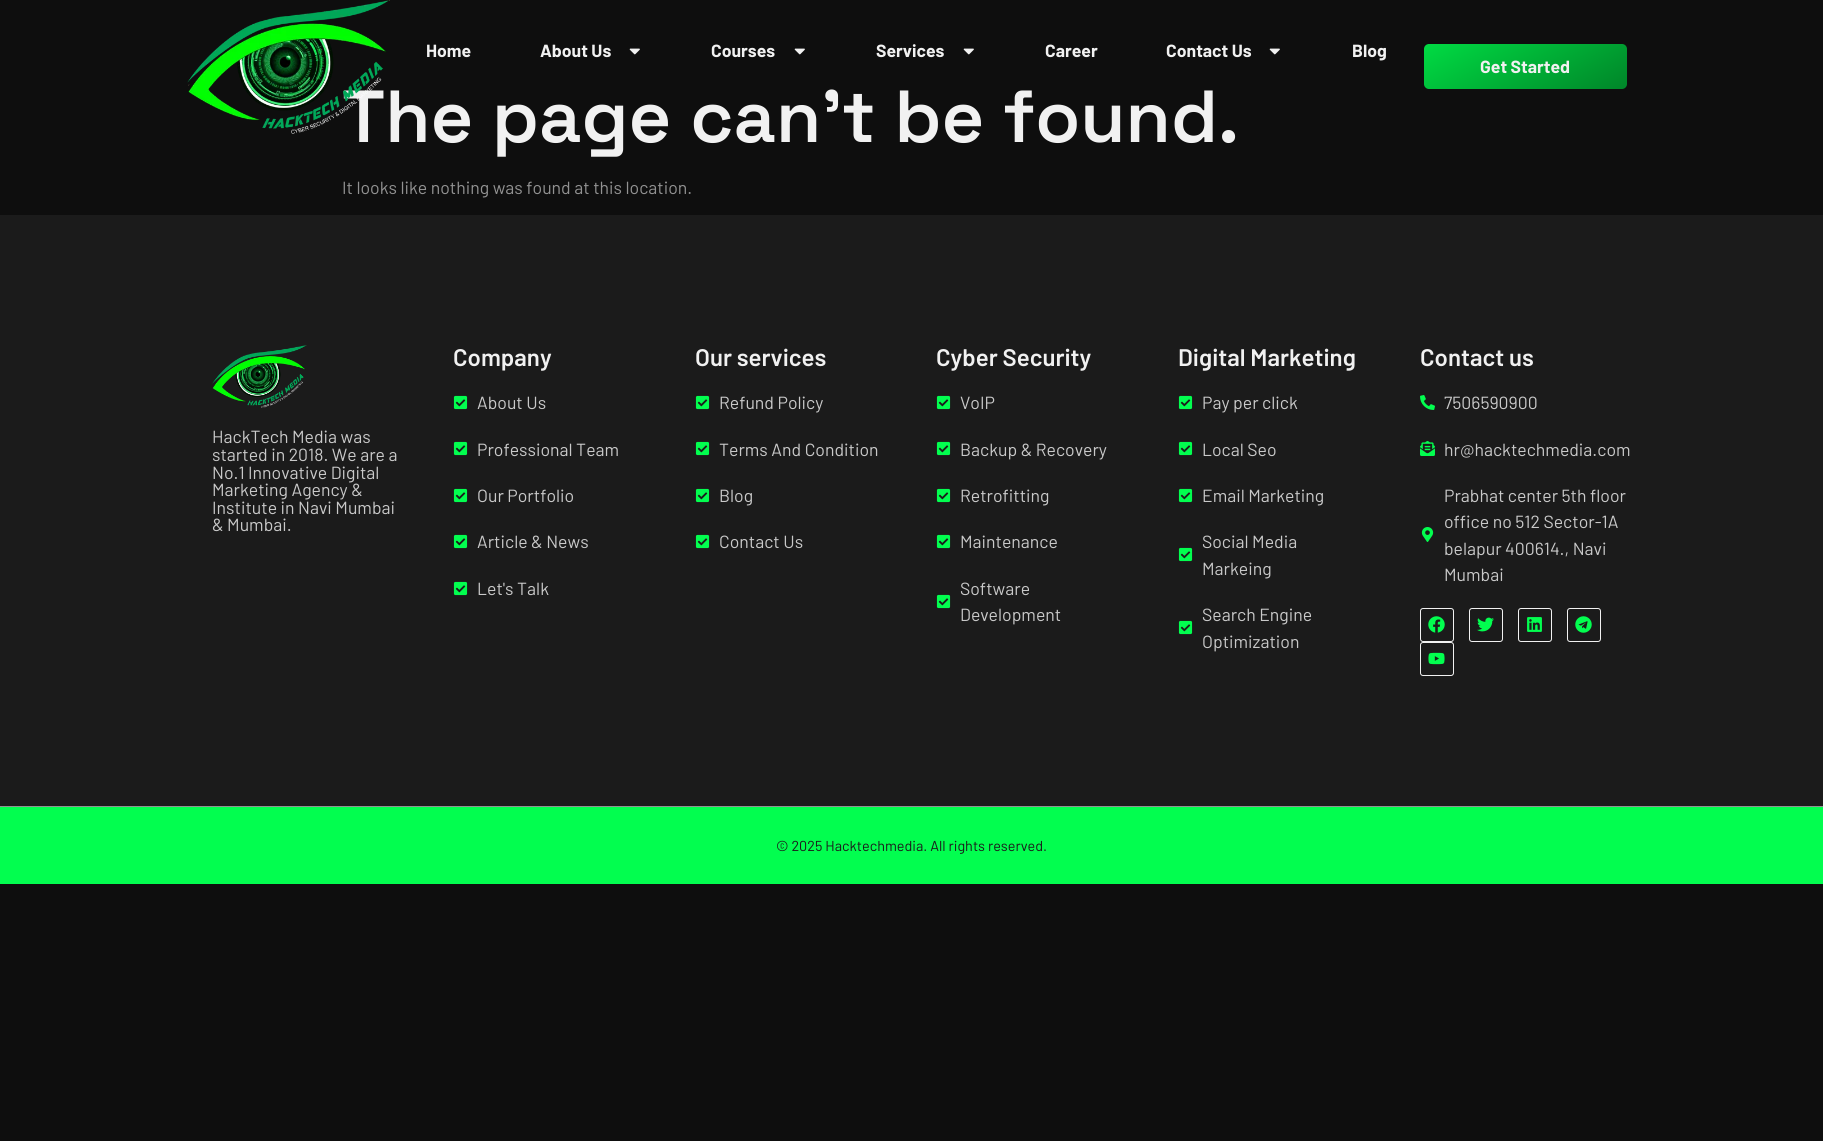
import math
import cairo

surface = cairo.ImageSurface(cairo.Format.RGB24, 1823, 1141)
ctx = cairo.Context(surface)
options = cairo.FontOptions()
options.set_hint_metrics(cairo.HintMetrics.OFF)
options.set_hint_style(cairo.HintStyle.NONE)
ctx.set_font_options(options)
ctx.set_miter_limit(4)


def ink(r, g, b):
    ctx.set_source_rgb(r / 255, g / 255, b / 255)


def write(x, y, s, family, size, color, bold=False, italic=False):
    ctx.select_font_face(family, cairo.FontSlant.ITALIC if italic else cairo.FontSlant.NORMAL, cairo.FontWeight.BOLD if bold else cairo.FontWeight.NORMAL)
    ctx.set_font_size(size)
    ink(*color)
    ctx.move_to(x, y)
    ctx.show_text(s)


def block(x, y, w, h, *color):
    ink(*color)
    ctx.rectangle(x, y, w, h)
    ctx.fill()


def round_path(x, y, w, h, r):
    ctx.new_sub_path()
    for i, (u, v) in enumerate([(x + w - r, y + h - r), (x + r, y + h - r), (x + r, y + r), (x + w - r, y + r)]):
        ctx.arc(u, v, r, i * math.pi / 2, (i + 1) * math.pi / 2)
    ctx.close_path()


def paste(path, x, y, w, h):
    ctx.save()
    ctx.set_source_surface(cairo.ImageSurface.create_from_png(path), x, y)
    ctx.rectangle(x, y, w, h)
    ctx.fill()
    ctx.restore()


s1 = dict(family="Space Grotesk SemiBold", size=73.6, color=(241, 241, 241))
s2 = dict(family="Barlow", size=17.6, color=(241, 241, 241), bold=True)
s3 = dict(family="Barlow", size=17.6, color=(146, 146, 146))
s4 = dict(family="Barlow", size=17.6, color=(201, 201, 201))
s5 = dict(family="Barlow SemiBold", size=24, color=(241, 241, 241))
s6 = dict(family="Barlow", size=14.4, color=(27, 27, 27))

ink(14, 14, 14)
ctx.paint()
write(342, 142, "The page can’t be found.", **s1)
paste("pic1.png", 187, 0, 203, 134)
write(426, 57, "Home", **s2)
write(540, 57, "About Us", **s2)
paste("pic2.png", 629, 48, 11, 7)
write(711, 57, "Courses", **s2)
paste("pic2.png", 794, 48, 11, 7)
write(876, 57, "Services", **s2)
paste("pic2.png", 963, 48, 11, 7)
write(1045, 57, "Career", **s2)
write(1166, 57, "Contact Us", **s2)
paste("pic2.png", 1269, 48, 11, 7)
write(1352, 57, "Blog", **s2)
gradient = cairo.LinearGradient(1490, 5.7, 1561, 127)
gradient.add_color_stop_rgba(0, 0, 0.859, 0.263, 1)
gradient.add_color_stop_rgba(1, 0, 0.525, 0.161, 1)
ctx.set_source(gradient)
round_path(1424, 44, 203, 45, 5)
ctx.fill()
write(1480, 73, "Get Started", **s2)
write(342, 194, "It looks like nothing was found at this location.", **s3)
block(0, 215, 1823, 591, 27, 27, 27)
paste("pic3.png", 212, 345, 95, 63)
write(212, 443, "HackTech Media was", **s4)
write(212, 461, "started in 2018. We are a", **s4)
write(212, 479, "No.1 Innovative Digital", **s4)
write(212, 496, "Marketing Agency &", **s4)
write(212, 514, "Institute in Navi Mumbai", **s4)
write(212, 531, "& Mumbai.", **s4)
write(453, 366, "Company", **s5)
paste("pic4.png", 453, 395, 15, 15)
write(477, 409, "About Us", **s4)
paste("pic4.png", 453, 441, 15, 15)
write(477, 456, "Professional Team", **s4)
paste("pic4.png", 453, 488, 15, 15)
write(477, 502, "Our Portfolio", **s4)
paste("pic4.png", 453, 534, 15, 15)
write(477, 548, "Article & News", **s4)
paste("pic4.png", 453, 581, 15, 15)
write(477, 595, "Let's Talk", **s4)
write(695, 366, "Our services", **s5)
paste("pic4.png", 695, 395, 15, 15)
write(719, 409, "Refund Policy", **s4)
paste("pic4.png", 695, 441, 15, 15)
write(719, 456, "Terms And Condition", **s4)
paste("pic4.png", 695, 488, 15, 15)
write(719, 502, "Blog", **s4)
paste("pic4.png", 695, 534, 15, 15)
write(719, 548, "Contact Us", **s4)
write(936, 366, "Cyber Security", **s5)
paste("pic4.png", 936, 395, 15, 15)
write(960, 409, "VoIP", **s4)
paste("pic4.png", 936, 441, 15, 15)
write(960, 456, "Backup & Recovery", **s4)
paste("pic4.png", 936, 488, 15, 15)
write(960, 502, "Retrofitting", **s4)
paste("pic4.png", 936, 534, 15, 15)
write(960, 548, "Maintenance", **s4)
paste("pic4.png", 936, 594, 15, 15)
write(960, 595, "Software", **s4)
write(960, 621, "Development", **s4)
write(1178, 366, "Digital Marketing", **s5)
paste("pic4.png", 1178, 395, 15, 15)
write(1202, 409, "Pay per click", **s4)
paste("pic4.png", 1178, 441, 15, 15)
write(1202, 456, "Local Seo", **s4)
paste("pic4.png", 1178, 488, 15, 15)
write(1202, 502, "Email Marketing", **s4)
paste("pic4.png", 1178, 547, 15, 15)
write(1202, 548, "Social Media", **s4)
write(1202, 575, "Markeing", **s4)
paste("pic4.png", 1178, 620, 15, 15)
write(1202, 621, "Search Engine", **s4)
write(1202, 648, "Optimization", **s4)
write(1420, 366, "Contact us", **s5)
paste("pic5.png", 1420, 395, 15, 15)
write(1444, 409, "7506590900", **s4)
paste("pic6.png", 1420, 441, 15, 15)
write(1444, 456, "hr@hacktechmedia.com", **s4)
paste("pic7.png", 1421, 527, 13, 15)
write(1444, 502, "Prabhat center 5th floor", **s4)
write(1444, 528, "office no 512 Sector-1A", **s4)
write(1444, 555, "belapur 400614., Navi", **s4)
write(1444, 581, "Mumbai", **s4)
round_path(1420.5, 608.5, 33, 33, 2.5)
ink(241, 241, 241)
ctx.set_line_width(1)
ctx.stroke()
paste("pic8.png", 1428, 616, 17, 17)
round_path(1469.5, 608.5, 33, 33, 2.5)
ctx.stroke()
paste("pic9.png", 1477, 617, 17, 15)
round_path(1518.5, 608.5, 33, 33, 2.5)
ctx.stroke()
paste("pic10.png", 1527, 617, 15, 15)
round_path(1567.5, 608.5, 33, 33, 2.5)
ctx.stroke()
paste("pic11.png", 1575, 616, 17, 17)
round_path(1420.5, 642.5, 33, 33, 2.5)
ctx.stroke()
paste("pic12.png", 1428, 652, 17, 13)
block(0, 807, 1823, 77, 2, 254, 79)
block(0, 806, 1823, 1, 146, 146, 146)
write(776, 851, "© 2025 Hacktechmedia. All rights reserved.", **s6)
surface.write_to_png("screenshot.png")
